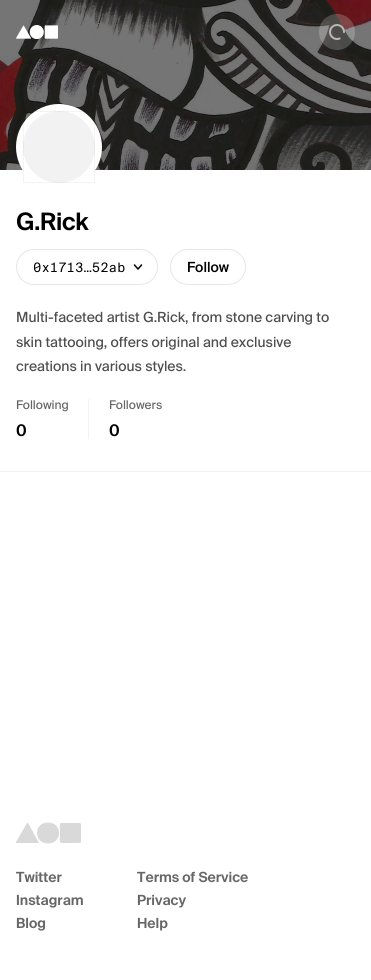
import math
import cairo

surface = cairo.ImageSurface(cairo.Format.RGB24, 371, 980)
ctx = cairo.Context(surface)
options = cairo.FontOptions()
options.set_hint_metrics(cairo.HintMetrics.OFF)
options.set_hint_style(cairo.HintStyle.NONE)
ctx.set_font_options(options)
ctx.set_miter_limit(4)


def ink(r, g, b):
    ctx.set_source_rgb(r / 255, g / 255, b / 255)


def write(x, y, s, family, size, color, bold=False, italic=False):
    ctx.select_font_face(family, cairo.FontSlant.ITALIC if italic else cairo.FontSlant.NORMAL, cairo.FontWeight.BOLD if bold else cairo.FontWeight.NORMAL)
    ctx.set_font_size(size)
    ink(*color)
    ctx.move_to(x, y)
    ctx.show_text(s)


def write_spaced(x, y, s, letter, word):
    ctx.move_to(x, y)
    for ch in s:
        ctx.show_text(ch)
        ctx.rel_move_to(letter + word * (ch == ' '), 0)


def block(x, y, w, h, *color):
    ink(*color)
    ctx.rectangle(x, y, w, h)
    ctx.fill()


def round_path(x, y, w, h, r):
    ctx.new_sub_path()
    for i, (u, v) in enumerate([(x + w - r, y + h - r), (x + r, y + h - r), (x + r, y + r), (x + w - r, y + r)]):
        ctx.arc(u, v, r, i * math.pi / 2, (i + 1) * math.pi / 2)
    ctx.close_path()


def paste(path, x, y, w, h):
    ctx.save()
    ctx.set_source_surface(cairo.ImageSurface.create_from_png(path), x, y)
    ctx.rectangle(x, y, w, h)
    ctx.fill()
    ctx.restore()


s1 = dict(family="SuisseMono", size=13, color=(0, 0, 0))
s2 = dict(family="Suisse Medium", size=14, color=(0, 0, 0))
s3 = dict(family="Suisse", size=14, color=(77, 77, 77))
s4 = dict(family="Suisse", size=12, color=(102, 102, 102))
s5 = dict(family="Suisse SemiBold", size=16, color=(0, 0, 0))
s6 = dict(family="Suisse SemiBold", size=14, color=(102, 102, 102))

ink(255, 255, 255)
ctx.paint()
paste("pic1.png", 0, 0, 371, 170)
ink(255, 255, 255)
ctx.arc(59, 147, 43, 0, 2 * math.pi)
ctx.fill()
ink(242, 242, 242)
ctx.arc(59, 147, 36, 0, 2 * math.pi)
ctx.fill()
ctx.rectangle(23.5, 111.5, 71, 71)
ctx.set_source_rgba(0, 0, 0, 0.05)
ctx.set_line_width(1)
ctx.stroke()
paste("pic2.png", 16, 25, 42, 14)
ctx.set_source_rgba(1, 1, 1, 0.2)
ctx.arc(337, 32, 18, 0, 2 * math.pi)
ctx.fill()
paste("pic3.png", 329, 24, 16, 16)
ctx.select_font_face("Suisse SemiBold")
ctx.set_font_size(24)
ink(0, 0, 0)
write_spaced(16, 230, "G.Rick", -0.25, 0)
round_path(16.5, 249.5, 141, 35, 17.5)
ink(230, 230, 230)
ctx.stroke()
write(33, 272, "0x1713…52ab", **s1)
ctx.new_path()
ctx.move_to(134.5, 265)
ctx.line_to(138, 269)
ctx.line_to(141.5, 265)
ctx.set_line_width(1.5)
ctx.set_line_cap(cairo.LineCap.ROUND)
ctx.set_line_join(cairo.LineJoin.ROUND)
ctx.stroke()
round_path(170.5, 249.5, 75, 35, 17.5)
ink(230, 230, 230)
ctx.set_line_width(1)
ctx.set_line_cap(cairo.LineCap.BUTT)
ctx.set_line_join(cairo.LineJoin.MITER)
ctx.stroke()
write(187, 272, "Follow", **s2)
write(16, 322, "Multi-faceted artist G.Rick, from stone carving to", **s3)
write(16, 347, "skin tattooing, offers original and exclusive", **s3)
write(16, 371, "creations in various styles.", **s3)
write(16, 409, "Following", **s4)
write(16, 436, "0", **s5)
block(88, 399, 1, 40, 242, 242, 242)
write(109, 409, "Followers", **s4)
write(109, 436, "0", **s5)
block(0, 471, 371, 1, 242, 242, 242)
ctx.save()
ctx.rectangle(16, 822, 65, 22)
ctx.clip()
ink(217, 217, 217)
ctx.set_fill_rule(cairo.FillRule.EVEN_ODD)
ctx.new_path()
ctx.move_to(59, 833)
ctx.curve_to(59, 847, 37, 847, 37, 833)
ctx.curve_to(37, 819, 59, 819, 59, 833)
ctx.close_path()
ctx.move_to(27, 823)
ctx.line_to(28, 823)
ctx.line_to(39, 843)
ctx.line_to(16, 843)
ctx.line_to(16, 842)
ctx.close_path()
ctx.move_to(61, 823)
ctx.curve_to(59, 823, 60, 831, 60, 833)
ctx.curve_to(60, 834, 59, 843, 61, 843)
ctx.line_to(77, 843)
ctx.curve_to(83, 843, 81, 843, 81, 836)
ctx.line_to(81, 824)
ctx.line_to(80, 823)
ctx.close_path()
ctx.fill()
ctx.restore()
write(16, 882, "Twitter", **s6)
write(16, 905, "Instagram", **s6)
write(16, 928, "Blog", **s6)
write(137, 882, "Terms of Service", **s6)
write(137, 905, "Privacy", **s6)
write(137, 928, "Help", **s6)
surface.write_to_png("screenshot.png")
